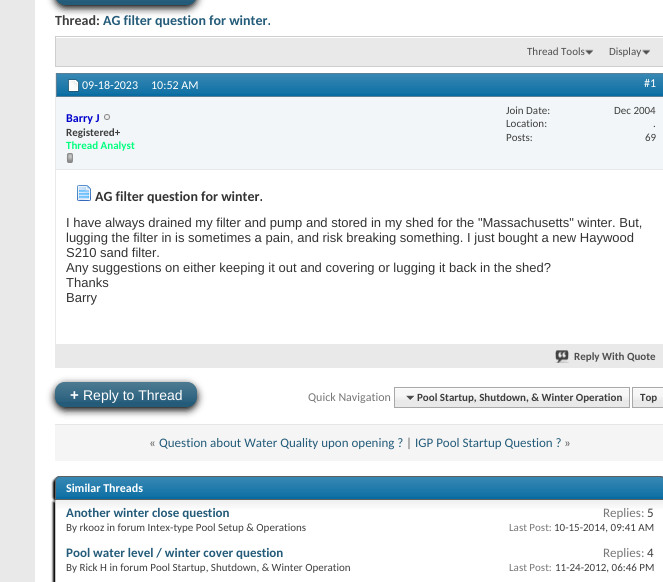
import math
import cairo

surface = cairo.ImageSurface(cairo.Format.RGB24, 663, 582)
ctx = cairo.Context(surface)
options = cairo.FontOptions()
options.set_hint_metrics(cairo.HintMetrics.OFF)
options.set_hint_style(cairo.HintStyle.NONE)
ctx.set_font_options(options)
ctx.set_miter_limit(4)


def ink(r, g, b):
    ctx.set_source_rgb(r / 255, g / 255, b / 255)


def write(x, y, s, family, size, color, bold=False, italic=False):
    ctx.select_font_face(family, cairo.FontSlant.ITALIC if italic else cairo.FontSlant.NORMAL, cairo.FontWeight.BOLD if bold else cairo.FontWeight.NORMAL)
    ctx.set_font_size(size)
    ink(*color)
    ctx.move_to(x, y)
    ctx.show_text(s)


def block(x, y, w, h, *color):
    ink(*color)
    ctx.rectangle(x, y, w, h)
    ctx.fill()


def round_path(x, y, w, h, r):
    ctx.new_sub_path()
    for i, (u, v) in enumerate([(x + w - r, y + h - r), (x + r, y + h - r), (x + r, y + r), (x + w - r, y + r)]):
        ctx.arc(u, v, r, i * math.pi / 2, (i + 1) * math.pi / 2)
    ctx.close_path()


def blur_box(x, y, w, h, r, blur, alpha):
    ctx.push_group_with_content(cairo.Content.ALPHA)
    ctx.set_operator(cairo.Operator.SOURCE)
    for i in range(15, -16, -2):
        e = blur * i / 6
        if min(w, h) + 2 * e > 0:
            ctx.set_source_rgba(0, 0, 0, alpha * math.erfc((i - 1) / 8.5) / 2)
            round_path(x - e, y - e, w + 2 * e, h + 2 * e, max(0, min(r + e + blur * .6, min(w, h) / 2 + e)))
            ctx.fill()
    ctx.mask(ctx.pop_group())


def paste(path, x, y, w, h):
    ctx.save()
    ctx.set_source_surface(cairo.ImageSurface.create_from_png(path), x, y)
    ctx.rectangle(x, y, w, h)
    ctx.fill()
    ctx.restore()


s1 = dict(family="Carlito", size=14, color=(62, 62, 62), bold=True)
s2 = dict(family="Carlito", size=14, color=(35, 91, 121), bold=True)
s3 = dict(family="Carlito", size=11, color=(78, 78, 78))
s4 = dict(family="Carlito", size=12, color=(255, 255, 255))
s5 = dict(family="Carlito", size=12, color=(0, 0, 205), bold=True)
s6 = dict(family="Carlito", size=11, color=(62, 62, 62), bold=True)
s7 = dict(family="Carlito", size=11, color=(0, 255, 127), bold=True)
s8 = dict(family="Carlito", size=11, color=(62, 62, 62))
s9 = dict(family="Carlito", size=14, color=(51, 51, 51), bold=True)
s10 = dict(family="Liberation Sans", size=13, color=(51, 51, 51))
s11 = dict(family="Carlito", size=11, color=(78, 78, 78), bold=True)
s12 = dict(family="Liberation Sans", size=15, color=(255, 255, 255), bold=True)
s13 = dict(family="Liberation Sans", size=14, color=(255, 255, 255))
s14 = dict(family="Carlito", size=12, color=(119, 119, 119))
s15 = dict(family="Carlito", size=13, color=(93, 93, 93))
s16 = dict(family="Carlito", size=13, color=(35, 91, 121))
s17 = dict(family="Carlito", size=12, color=(255, 255, 255), bold=True)
s18 = dict(family="Carlito", size=13, color=(35, 91, 121), bold=True)
s19 = dict(family="Carlito", size=13, color=(119, 119, 119))
s20 = dict(family="Carlito", size=13, color=(62, 62, 62))
s21 = dict(family="Carlito", size=11, color=(119, 119, 119))

ink(233, 233, 233)
ctx.paint()
block(35, 0, 628, 582, 255, 255, 255)
ink(0, 0, 0)
blur_box(55, -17, 142, 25, 10, 4, 1)
ink(35, 91, 121)
round_path(55, -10, 142, 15, 10)
ctx.fill()
block(58, 0, 136, 1, 39, 94, 124)
write(55, 25, "Thread:", **s1)
write(103, 25, "AG filter question for winter.", **s2)
block(56, 38, 607, 28, 233, 233, 233)
ctx.rectangle(55.5, 36.5, 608, 30)
ink(206, 206, 206)
ctx.set_line_width(1)
ctx.stroke()
paste("pic1.png", 585, 49, 9, 7)
write(527, 55, "Thread Tools", **s3)
paste("pic1.png", 642, 49, 9, 7)
write(609, 55, "Display", **s3)
ctx.rectangle(55.5, 73.5, 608, 294)
ink(233, 233, 233)
ctx.stroke()
block(57, 74, 606, 22, 8, 108, 162)
paste("pic2.png", 57, 74, 606, 20)
ctx.rectangle(56.5, 73.5, 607, 23)
ink(90, 127, 151)
ctx.stroke()
paste("pic3.png", 68, 79, 11, 13)
write(82, 89, "09-18-2023", **s4)
write(151, 89, "10:52 AM", **s4)
write(644, 87, "#1", **s4)
block(56, 97, 607, 72, 242, 246, 248)
block(56, 169, 607, 1, 233, 233, 233)
write(66, 122, "Barry J", **s5)
paste("pic4.png", 104, 114, 6, 6)
write(66, 136, "Registered+", **s6)
write(66, 149, "Thread Analyst", **s7)
paste("pic5.png", 66, 153, 7, 10)
write(506, 114, "Join Date:", **s8)
write(614, 114, "Dec 2004", **s8)
write(506, 127, "Location:", **s8)
write(653, 127, ".", **s8)
write(506, 141, "Posts:", **s8)
write(645, 141, "69", **s8)
paste("pic6.png", 77, 185, 14, 16)
write(95, 201, "AG filter question for winter.", **s9)
write(66, 227, "I have always drained my filter and pump and stored in my shed for the \"Massachusetts\" winter. But,", **s10)
write(66, 242, "lugging the filter in is sometimes a pain, and risk breaking something. I just bought a new Haywood", **s10)
write(66, 257, "S210 sand filter.", **s10)
write(66, 272, "Any suggestions on either keeping it out and covering or lugging it back in the shed?", **s10)
write(66, 287, "Thanks", **s10)
write(66, 302, "Barry", **s10)
block(56, 344, 607, 23, 233, 233, 233)
paste("pic7.png", 555, 350, 14, 13)
write(574, 360, "Reply With Quote", **s11)
ink(0, 0, 0)
blur_box(55, 385, 142, 25, 10, 4, 1)
ink(35, 91, 121)
round_path(55, 382, 142, 25, 10)
ctx.fill()
paste("pic8.png", 55, 382, 142, 20)
write(70, 400, "+", **s12)
write(83, 400, "Reply to Thread", **s13)
write(308, 401, "Quick Navigation", **s14)
block(395, 388, 234, 19, 233, 233, 233)
paste("pic9.png", 395, 388, 234, 12)
block(633, 388, 30, 19, 233, 233, 233)
paste("pic10.png", 633, 388, 30, 12)
ctx.rectangle(394.5, 387.5, 235, 20)
ink(168, 168, 168)
ctx.stroke()
paste("pic11.png", 406, 395, 9, 6)
write(417, 401, "Pool Startup, Shutdown, & Winter Operation", **s6)
ctx.rectangle(632.5, 387.5, 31, 20)
ink(168, 168, 168)
ctx.stroke()
write(640, 401, "Top", **s6)
block(55, 425, 608, 36, 245, 245, 245)
block(55, 424, 608, 1, 231, 231, 231)
write(149, 447, "«", **s15)
write(159, 447, "Question about Water Quality upon opening ?", **s16)
write(406, 447, "|", **s15)
write(415, 447, "IGP Pool Startup Question ?", **s16)
write(564, 447, "»", **s15)
ink(0, 0, 0)
blur_box(53, 478, 610, 24, 5, 1, 1)
ink(8, 108, 162)
ctx.new_path()
ctx.move_to(60, 476)
ctx.line_to(660, 476)
ctx.curve_to(663, 476, 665, 478, 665, 481)
ctx.line_to(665, 500)
ctx.line_to(55, 500)
ctx.line_to(55, 481)
ctx.curve_to(55, 478, 57, 476, 60, 476)
ctx.close_path()
ctx.fill()
paste("pic12.png", 55, 477, 608, 20)
ctx.new_path()
ctx.move_to(60, 476.5)
ctx.line_to(660, 476.5)
ctx.curve_to(662.5, 476.5, 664.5, 478.5, 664.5, 481)
ctx.line_to(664.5, 499.5)
ctx.line_to(55.5, 499.5)
ctx.line_to(55.5, 481)
ctx.curve_to(55.5, 478.5, 57.5, 476.5, 60, 476.5)
ctx.close_path()
ink(96, 96, 96)
ctx.stroke()
write(66, 492, "Similar Threads", **s17)
ink(0, 0, 0)
blur_box(53, 502, 610, 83, 0, 1, 1)
block(56, 500, 607, 82, 255, 255, 255)
paste("pic13.png", 56, 500, 607, 9)
block(55, 500, 1, 82, 196, 196, 196)
write(66, 517, "Another winter close question", **s18)
write(66, 531, "By rkooz in forum Intex-type Pool Setup & Operations", **s8)
write(603, 517, "Replies:", **s19)
write(647, 517, "5", **s20)
write(509, 531, "Last Post:", **s21)
write(554, 531, "10-15-2014, 09:41 AM", **s8)
write(66, 557, "Pool water level / winter cover question", **s18)
write(66, 571, "By Rick H in forum Pool Startup, Shutdown, & Winter Operation", **s8)
write(603, 557, "Replies:", **s19)
write(647, 557, "4", **s20)
write(509, 571, "Last Post:", **s21)
write(555, 571, "11-24-2012, 06:46 PM", **s8)
surface.write_to_png("screenshot.png")
